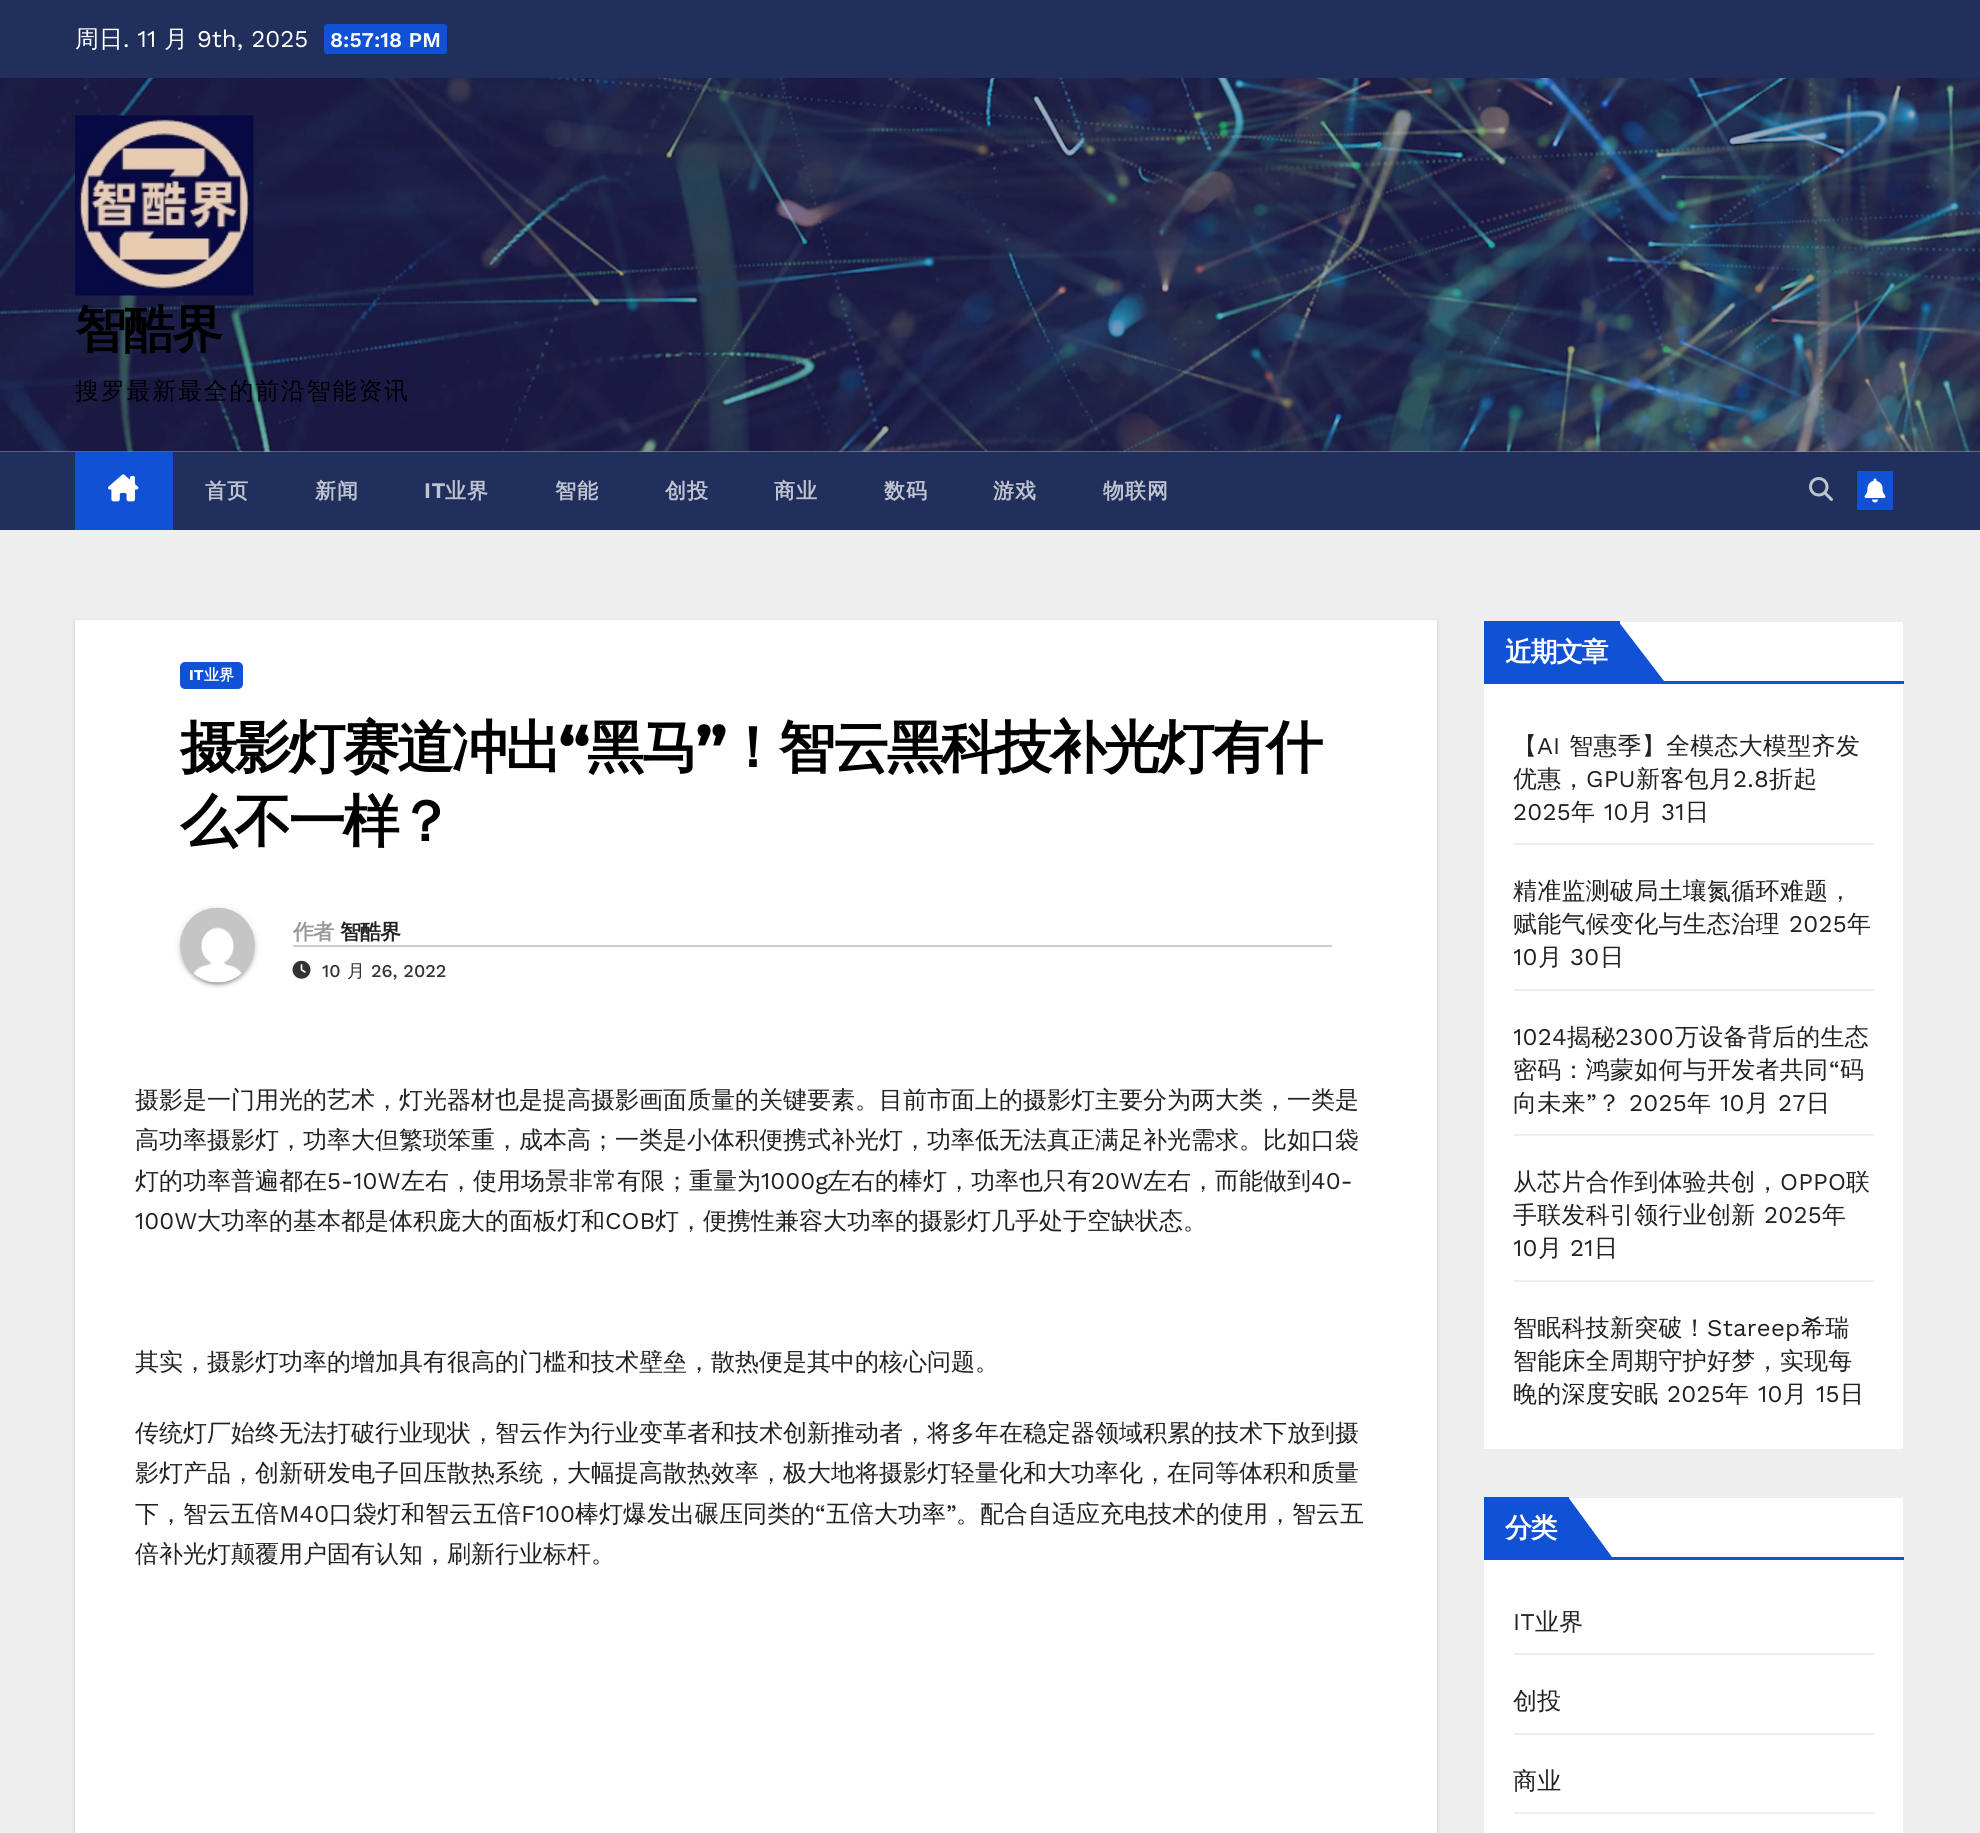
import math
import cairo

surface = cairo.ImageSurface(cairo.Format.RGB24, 1980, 1833)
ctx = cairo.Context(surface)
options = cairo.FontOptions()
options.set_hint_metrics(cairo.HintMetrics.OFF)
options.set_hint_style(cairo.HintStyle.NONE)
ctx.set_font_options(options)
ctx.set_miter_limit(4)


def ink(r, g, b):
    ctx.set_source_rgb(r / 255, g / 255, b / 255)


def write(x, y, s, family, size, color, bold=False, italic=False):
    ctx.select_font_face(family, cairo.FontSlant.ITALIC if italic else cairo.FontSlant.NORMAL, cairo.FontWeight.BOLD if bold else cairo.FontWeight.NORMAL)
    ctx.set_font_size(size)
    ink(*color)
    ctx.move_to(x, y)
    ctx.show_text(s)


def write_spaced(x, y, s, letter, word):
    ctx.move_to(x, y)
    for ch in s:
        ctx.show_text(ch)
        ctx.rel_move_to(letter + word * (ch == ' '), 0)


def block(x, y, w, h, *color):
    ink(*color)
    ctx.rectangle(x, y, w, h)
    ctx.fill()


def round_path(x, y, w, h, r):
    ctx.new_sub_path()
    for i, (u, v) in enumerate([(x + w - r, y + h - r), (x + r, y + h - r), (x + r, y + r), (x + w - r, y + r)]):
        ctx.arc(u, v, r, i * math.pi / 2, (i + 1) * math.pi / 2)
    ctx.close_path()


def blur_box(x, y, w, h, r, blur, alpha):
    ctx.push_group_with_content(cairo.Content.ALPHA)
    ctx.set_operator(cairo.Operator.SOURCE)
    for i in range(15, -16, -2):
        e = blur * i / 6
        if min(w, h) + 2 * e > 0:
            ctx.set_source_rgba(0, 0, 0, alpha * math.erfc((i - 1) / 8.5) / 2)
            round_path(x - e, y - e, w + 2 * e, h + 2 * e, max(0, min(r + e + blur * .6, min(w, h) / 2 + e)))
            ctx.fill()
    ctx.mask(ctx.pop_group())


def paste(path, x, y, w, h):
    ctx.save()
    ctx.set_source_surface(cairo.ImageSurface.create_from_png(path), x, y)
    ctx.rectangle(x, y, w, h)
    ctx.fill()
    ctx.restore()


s1 = dict(family="WenQuanYi Zen Hei Medium", size=24, color=(255, 255, 255))
s2 = dict(family="Work Sans", size=24, color=(255, 255, 255))
s3 = dict(family="Work Sans SemiBold", size=21, color=(255, 255, 255))
s4 = dict(family="Work Sans", size=15, color=(255, 255, 255), bold=True)
s5 = dict(family="WenQuanYi Zen Hei", size=15, color=(255, 255, 255), bold=True)
s6 = dict(family="Work Sans Medium", size=18, color=(51, 51, 51))
s7 = dict(family="WenQuanYi Zen Hei Medium", size=18, color=(51, 51, 51))
s8 = dict(family="WenQuanYi Zen Hei Medium", size=24, color=(33, 33, 33))
s9 = dict(family="Work Sans", size=24, color=(33, 33, 33))

ink(238, 238, 238)
ctx.paint()
block(0, 451, 1980, 1, 156, 162, 179)
block(0, 0, 1980, 78, 32, 47, 91)
write(75, 47, "周日", **s1)
write(123, 47, ". 11", **s2)
write(164, 47, "月", **s1)
write(197, 47, "9th, 2025", **s2)
ink(17, 81, 211)
round_path(324, 24, 123, 30, 3)
ctx.fill()
write(330, 47, "8:57:18 PM", **s3)
paste("pic1.png", 0, 78, 1980, 374)
paste("pic2.png", 75, 115, 179, 181)
ctx.select_font_face("WenQuanYi Zen Hei", cairo.FontSlant.NORMAL, cairo.FontWeight.BOLD)
ctx.set_font_size(51)
ink(0, 0, 0)
write_spaced(75, 347, "智酷界", -2.5, 0)
ctx.select_font_face("WenQuanYi Zen Hei Medium")
ctx.set_font_size(24)
write_spaced(75, 399, "搜罗最新最全的前沿智能资讯", 1.75, 0)
block(0, 452, 1980, 78, 32, 47, 91)
block(75, 452, 98, 78, 17, 81, 211)
paste("pic3.png", 108, 474, 31, 28)
ctx.select_font_face("WenQuanYi Zen Hei", cairo.FontSlant.NORMAL, cairo.FontWeight.BOLD)
ctx.set_font_size(21)
ink(190, 195, 207)
write_spaced(205, 498, "首页", 1, 0)
write_spaced(315, 498, "新闻", 1, 0)
ctx.select_font_face("Montserrat", cairo.FontSlant.NORMAL, cairo.FontWeight.BOLD)
write_spaced(424, 498, "IT", 1, 0)
ctx.select_font_face("WenQuanYi Zen Hei", cairo.FontSlant.NORMAL, cairo.FontWeight.BOLD)
write_spaced(445, 498, "业界", 1, 0)
write_spaced(555, 498, "智能", 1, 0)
write_spaced(665, 498, "创投", 1, 0)
write_spaced(774, 498, "商业", 1, 0)
write_spaced(884, 498, "数码", 1, 0)
write_spaced(993, 498, "游戏", 1, 0)
write_spaced(1103, 498, "物联网", 1, 0)
paste("pic4.png", 1809, 477, 24, 24)
block(1857, 471, 36, 39, 17, 81, 211)
paste("pic5.png", 1864, 478, 22, 25)
ink(0, 0, 0)
blur_box(75, 621, 1362, 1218, 0, 2, 0.15)
block(75, 620, 1362, 1213, 255, 255, 255)
ink(17, 81, 211)
round_path(180, 662, 63, 27, 5)
ctx.fill()
write(189, 680, "IT", **s4)
write(204, 680, "业界", **s5)
ctx.set_font_size(57)
ink(0, 0, 0)
write_spaced(180, 767, "摄影灯赛道冲出", -2.8, 0)
ctx.select_font_face("Montserrat ExtraBold")
write_spaced(559, 767, "“", -2.8, 0)
ctx.select_font_face("WenQuanYi Zen Hei", cairo.FontSlant.NORMAL, cairo.FontWeight.BOLD)
write_spaced(587, 767, "黑马", -2.8, 0)
ctx.select_font_face("Montserrat ExtraBold")
write_spaced(696, 767, "”", -2.8, 0)
ctx.select_font_face("WenQuanYi Zen Hei", cairo.FontSlant.NORMAL, cairo.FontWeight.BOLD)
write_spaced(724, 767, "！智云黑科技补光灯有什", -2.8, 0)
write_spaced(180, 841, "么不一样？", -2.8, 0)
ink(0, 0, 0)
blur_box(180, 909, 75, 75, 37.5, 4, 0.12)
blur_box(183, 915, 69, 69, 34.5, 1, 0.2)
blur_box(180, 911, 75, 75, 37.5, 1.5, 0.14)
paste("pic6.png", 180, 907, 75, 76)
block(293, 945, 1039, 2, 204, 204, 204)
ctx.set_font_size(21)
ink(153, 153, 153)
write_spaced(293, 939, "作者", -1, 0)
ink(33, 33, 33)
write_spaced(340, 939, "智酷界", -1, 0)
paste("pic7.png", 292, 960, 19, 19)
write(322, 977, "10", **s6)
write(347, 977, "月", **s7)
write(371, 977, "26, 2022", **s6)
write(135, 1108, "摄影是一门用光的艺术，灯光器材也是提高摄影画面质量的关键要素。目前市面上的摄影灯主要分为两大类，一类是", **s8)
write(135, 1148, "高功率摄影灯，功率大但繁琐笨重，成本高；一类是小体积便携式补光灯，功率低无法真正满足补光需求。比如口袋", **s8)
write(135, 1189, "灯的功率普遍都在", **s8)
write(327, 1189, "5-10W", **s9)
write(401, 1189, "左右，使用场景非常有限；重量为", **s8)
write(761, 1189, "1000g", **s9)
write(827, 1189, "左右的棒灯，功率也只有", **s8)
write(1091, 1189, "20W", **s9)
write(1143, 1189, "左右，而能做到", **s8)
write(1311, 1189, "40-", **s9)
write(135, 1229, "100W", **s9)
write(197, 1229, "大功率的基本都是体积庞大的面板灯和", **s8)
write(605, 1229, "COB", **s9)
write(655, 1229, "灯，便携性兼容大功率的摄影灯几乎处于空缺状态。", **s8)
write(135, 1370, "其实，摄影灯功率的增加具有很高的门槛和技术壁垒，散热便是其中的核心问题。", **s8)
write(135, 1441, "传统灯厂始终无法打破行业现状，智云作为行业变革者和技术创新推动者，将多年在稳定器领域积累的技术下放到摄", **s8)
write(135, 1481, "影灯产品，创新研发电子回压散热系统，大幅提高散热效率，极大地将摄影灯轻量化和大功率化，在同等体积和质量", **s8)
write(135, 1522, "下，智云五倍", **s8)
write(279, 1522, "M40", **s9)
write(329, 1522, "口袋灯和智云五倍", **s8)
write(521, 1522, "F100", **s9)
write(575, 1522, "棒灯爆发出碾压同类的", **s8)
write(815, 1522, "“", **s9)
write(826, 1522, "五倍大功率", **s8)
write(946, 1522, "”", **s9)
write(956, 1522, "。配合自适应充电技术的使用，智云五", **s8)
write(135, 1562, "倍补光灯颠覆用户固有认知，刷新行业标杆。", **s8)
block(1484, 622, 419, 827, 255, 255, 255)
block(1484, 681, 420, 3, 17, 81, 211)
block(1484, 621, 136, 60, 17, 81, 211)
ctx.select_font_face("WenQuanYi Zen Hei", cairo.FontSlant.NORMAL, cairo.FontWeight.BOLD)
ctx.set_font_size(27)
ink(255, 255, 255)
write_spaced(1505, 661, "近期文章", -1.5, 0)
ink(17, 81, 211)
ctx.new_path()
ctx.move_to(1618, 681)
ctx.line_to(1618, 621)
ctx.line_to(1664, 681)
ctx.close_path()
ctx.fill()
block(1514, 843, 360, 2, 238, 238, 238)
ctx.select_font_face("WenQuanYi Zen Hei Medium")
ctx.set_font_size(24)
ink(33, 33, 33)
write_spaced(1513, 754, "【", 0.25, 0)
ctx.select_font_face("Work Sans")
write_spaced(1537, 754, "AI", 0.25, 0)
ctx.select_font_face("WenQuanYi Zen Hei Medium")
write_spaced(1569, 754, "智惠季】全模态大模型齐发", 0.25, 0)
ctx.save()
ctx.rectangle(1514, 714, 360, 129)
ctx.clip()
write_spaced(1513, 787, "优惠，", 0.25, 0)
ctx.restore()
ctx.select_font_face("Work Sans")
write_spaced(1586, 787, "GPU", 0.25, 0)
ctx.select_font_face("WenQuanYi Zen Hei Medium")
write_spaced(1636, 787, "新客包月", 0.25, 0)
ctx.select_font_face("Work Sans")
write_spaced(1733, 787, "2.8", 0.25, 0)
ctx.select_font_face("WenQuanYi Zen Hei Medium")
write_spaced(1769, 787, "折起", 0.25, 0)
ctx.select_font_face("Work Sans")
write_spaced(1513, 820, "2025", 0.25, 0)
ctx.select_font_face("WenQuanYi Zen Hei Medium")
write_spaced(1571, 820, "年", 0.25, 0)
ctx.select_font_face("Work Sans")
write_spaced(1604, 820, "10", 0.25, 0)
ctx.select_font_face("WenQuanYi Zen Hei Medium")
write_spaced(1629, 820, "月", 0.25, 0)
ctx.select_font_face("Work Sans")
write_spaced(1661, 820, "31", 0.25, 0)
ctx.select_font_face("WenQuanYi Zen Hei Medium")
write_spaced(1685, 820, "日", 0.25, 0)
block(1514, 989, 360, 2, 238, 238, 238)
ink(33, 33, 33)
write_spaced(1513, 899, "精准监测破局土壤氮循环难题，", 0.25, 0)
write_spaced(1513, 932, "赋能气候变化与生态治理", 0.25, 0)
ctx.select_font_face("Work Sans")
write_spaced(1789, 932, "2025", 0.25, 0)
ctx.select_font_face("WenQuanYi Zen Hei Medium")
write_spaced(1847, 932, "年", 0.25, 0)
ctx.save()
ctx.rectangle(1514, 860, 360, 129)
ctx.clip()
ctx.select_font_face("Work Sans")
write_spaced(1513, 965, "10", 0.25, 0)
ctx.restore()
write_spaced(1538, 965, "月", 0.25, 0)
ctx.select_font_face("Work Sans")
write_spaced(1570, 965, "30", 0.25, 0)
ctx.select_font_face("WenQuanYi Zen Hei Medium")
write_spaced(1600, 965, "日", 0.25, 0)
block(1514, 1134, 360, 2, 238, 238, 238)
ctx.save()
ctx.rectangle(1514, 1005, 360, 129)
ctx.clip()
ctx.select_font_face("Work Sans")
ink(33, 33, 33)
write_spaced(1513, 1045, "1024", 0.25, 0)
ctx.restore()
ink(33, 33, 33)
write_spaced(1567, 1045, "揭秘", 0.25, 0)
ctx.select_font_face("Work Sans")
write_spaced(1615, 1045, "2300", 0.25, 0)
ctx.select_font_face("WenQuanYi Zen Hei Medium")
write_spaced(1675, 1045, "万设备背后的生态", 0.25, 0)
write_spaced(1513, 1078, "密码：鸿蒙如何与开发者共同", 0.25, 0)
ctx.select_font_face("Work Sans")
write_spaced(1829, 1078, "“", 0.25, 0)
ctx.select_font_face("WenQuanYi Zen Hei Medium")
write_spaced(1840, 1078, "码", 0.25, 0)
write_spaced(1513, 1111, "向未来", 0.25, 0)
ctx.select_font_face("Work Sans")
write_spaced(1586, 1111, "”", 0.25, 0)
ctx.select_font_face("WenQuanYi Zen Hei Medium")
write_spaced(1597, 1111, "？", 0.25, 0)
ctx.select_font_face("Work Sans")
write_spaced(1629, 1111, "2025", 0.25, 0)
ctx.select_font_face("WenQuanYi Zen Hei Medium")
write_spaced(1687, 1111, "年", 0.25, 0)
ctx.select_font_face("Work Sans")
write_spaced(1720, 1111, "10", 0.25, 0)
ctx.select_font_face("WenQuanYi Zen Hei Medium")
write_spaced(1745, 1111, "月", 0.25, 0)
ctx.select_font_face("Work Sans")
write_spaced(1778, 1111, "27", 0.25, 0)
ctx.select_font_face("WenQuanYi Zen Hei Medium")
write_spaced(1806, 1111, "日", 0.25, 0)
block(1514, 1280, 360, 2, 238, 238, 238)
ink(33, 33, 33)
write_spaced(1513, 1190, "从芯片合作到体验共创，", 0.25, 0)
ctx.select_font_face("Work Sans")
write_spaced(1780, 1190, "OPPO", 0.25, 0)
ctx.select_font_face("WenQuanYi Zen Hei Medium")
write_spaced(1846, 1190, "联", 0.25, 0)
write_spaced(1513, 1223, "手联发科引领行业创新", 0.25, 0)
ctx.select_font_face("Work Sans")
write_spaced(1764, 1223, "2025", 0.25, 0)
ctx.select_font_face("WenQuanYi Zen Hei Medium")
write_spaced(1822, 1223, "年", 0.25, 0)
ctx.save()
ctx.rectangle(1514, 1151, 360, 129)
ctx.clip()
ctx.select_font_face("Work Sans")
write_spaced(1513, 1256, "10", 0.25, 0)
ctx.restore()
write_spaced(1538, 1256, "月", 0.25, 0)
ctx.select_font_face("Work Sans")
write_spaced(1570, 1256, "21", 0.25, 0)
ctx.select_font_face("WenQuanYi Zen Hei Medium")
write_spaced(1594, 1256, "日", 0.25, 0)
write_spaced(1513, 1336, "智眠科技新突破！", 0.25, 0)
ctx.select_font_face("Work Sans")
write_spaced(1707, 1336, "Stareep", 0.25, 0)
ctx.select_font_face("WenQuanYi Zen Hei Medium")
write_spaced(1801, 1336, "希瑞", 0.25, 0)
write_spaced(1513, 1369, "智能床全周期守护好梦，实现每", 0.25, 0)
write_spaced(1513, 1402, "晚的深度安眠", 0.25, 0)
ctx.select_font_face("Work Sans")
write_spaced(1667, 1402, "2025", 0.25, 0)
ctx.select_font_face("WenQuanYi Zen Hei Medium")
write_spaced(1725, 1402, "年", 0.25, 0)
ctx.select_font_face("Work Sans")
write_spaced(1758, 1402, "10", 0.25, 0)
ctx.select_font_face("WenQuanYi Zen Hei Medium")
write_spaced(1783, 1402, "月", 0.25, 0)
ctx.select_font_face("Work Sans")
write_spaced(1816, 1402, "15", 0.25, 0)
ctx.select_font_face("WenQuanYi Zen Hei Medium")
write_spaced(1840, 1402, "日", 0.25, 0)
block(1484, 1498, 419, 335, 255, 255, 255)
block(1484, 1557, 420, 3, 17, 81, 211)
block(1484, 1497, 85, 60, 17, 81, 211)
ctx.select_font_face("WenQuanYi Zen Hei", cairo.FontSlant.NORMAL, cairo.FontWeight.BOLD)
ctx.set_font_size(27)
ink(255, 255, 255)
write_spaced(1505, 1537, "分类", -1.5, 0)
ink(17, 81, 211)
ctx.new_path()
ctx.move_to(1568, 1557)
ctx.line_to(1568, 1497)
ctx.line_to(1612, 1557)
ctx.close_path()
ctx.fill()
block(1514, 1653, 360, 2, 238, 238, 238)
ctx.select_font_face("Work Sans")
ctx.set_font_size(24)
ink(33, 33, 33)
write_spaced(1513, 1630, "IT", 0.25, 0)
ctx.select_font_face("WenQuanYi Zen Hei Medium")
write_spaced(1535, 1630, "业界", 0.25, 0)
block(1514, 1733, 360, 2, 238, 238, 238)
ink(33, 33, 33)
write_spaced(1513, 1709, "创投", 0.25, 0)
block(1514, 1812, 360, 2, 238, 238, 238)
ink(33, 33, 33)
write_spaced(1513, 1789, "商业", 0.25, 0)
surface.write_to_png("screenshot.png")
